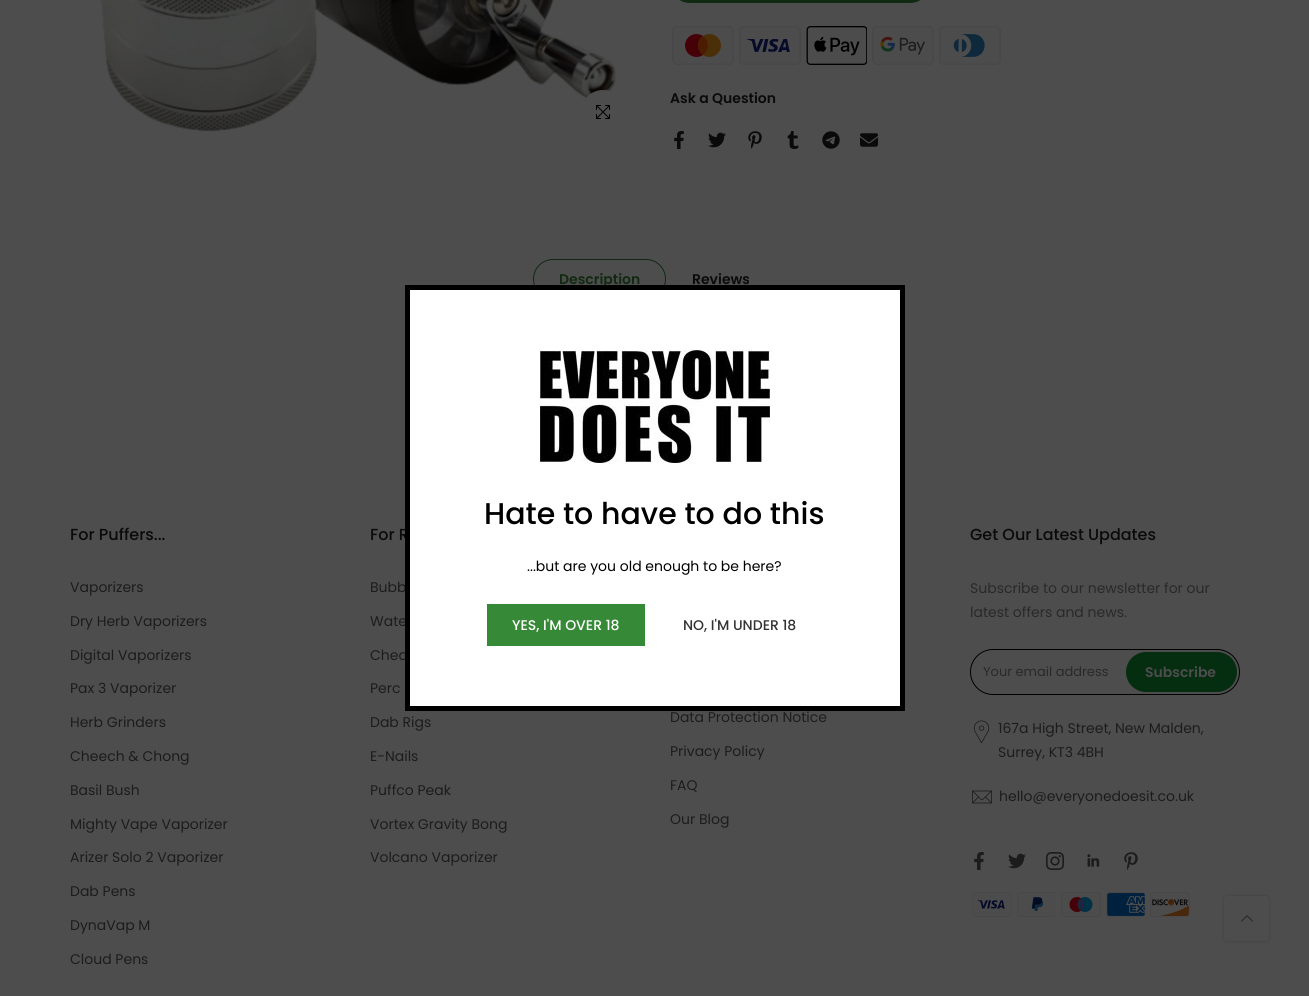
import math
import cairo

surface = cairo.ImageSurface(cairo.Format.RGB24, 1309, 996)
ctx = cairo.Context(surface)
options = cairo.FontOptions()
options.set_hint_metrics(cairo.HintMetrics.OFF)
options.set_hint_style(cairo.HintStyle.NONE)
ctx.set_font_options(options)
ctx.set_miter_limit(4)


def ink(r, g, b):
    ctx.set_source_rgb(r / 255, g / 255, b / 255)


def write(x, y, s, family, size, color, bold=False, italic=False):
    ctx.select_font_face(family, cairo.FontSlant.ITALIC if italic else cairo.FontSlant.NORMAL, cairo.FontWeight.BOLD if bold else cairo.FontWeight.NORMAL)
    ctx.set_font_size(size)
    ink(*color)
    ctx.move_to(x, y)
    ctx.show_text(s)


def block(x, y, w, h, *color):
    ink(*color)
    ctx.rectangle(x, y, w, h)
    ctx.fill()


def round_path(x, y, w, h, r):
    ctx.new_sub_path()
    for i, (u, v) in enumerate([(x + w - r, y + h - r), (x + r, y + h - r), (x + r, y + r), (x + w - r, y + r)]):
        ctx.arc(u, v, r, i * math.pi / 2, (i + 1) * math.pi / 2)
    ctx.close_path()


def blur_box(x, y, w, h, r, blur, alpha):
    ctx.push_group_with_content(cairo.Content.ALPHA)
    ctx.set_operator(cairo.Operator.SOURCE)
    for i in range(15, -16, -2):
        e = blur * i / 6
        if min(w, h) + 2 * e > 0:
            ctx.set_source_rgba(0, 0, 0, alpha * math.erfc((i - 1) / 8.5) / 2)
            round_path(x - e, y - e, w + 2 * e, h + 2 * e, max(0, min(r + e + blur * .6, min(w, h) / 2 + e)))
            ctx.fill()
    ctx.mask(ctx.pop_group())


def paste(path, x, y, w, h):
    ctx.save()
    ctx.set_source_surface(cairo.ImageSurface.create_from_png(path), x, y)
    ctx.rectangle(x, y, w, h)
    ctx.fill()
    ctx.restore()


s1 = dict(family="Poppins SemiBold", size=14, color=(10, 10, 10))
s2 = dict(family="Poppins SemiBold", size=14, color=(16, 41, 16))
s3 = dict(family="Poppins Medium", size=16, color=(10, 10, 10))
s4 = dict(family="Poppins", size=14, color=(28, 28, 28))
s5 = dict(family="Poppins", size=14, color=(41, 41, 41))
s6 = dict(family="Poppins", size=13, color=(41, 41, 41))
s7 = dict(family="Poppins SemiBold", size=14, color=(77, 77, 77))
s8 = dict(family="Poppins Medium", size=30, color=(0, 0, 0))
s9 = dict(family="Poppins", size=14, color=(0, 0, 0))
s10 = dict(family="Poppins Medium", size=14, color=(255, 255, 255))
s11 = dict(family="Poppins Medium", size=14, color=(51, 51, 51))

ink(77, 77, 77)
ctx.paint()
paste("pic1.png", 100, 0, 516, 132)
ink(77, 77, 77)
ctx.arc(603, 112, 22, 0, 2 * math.pi)
ctx.fill()
paste("pic2.png", 596, 105, 14, 14)
ink(16, 41, 16)
round_path(670, -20, 260, 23, 20)
ctx.fill()
paste("pic3.png", 672, 26, 62, 39)
paste("pic4.png", 739, 26, 62, 39)
paste("pic5.png", 806, 26, 61, 39)
paste("pic6.png", 872, 26, 62, 39)
paste("pic7.png", 939, 26, 62, 39)
write(670, 103, "Ask a Question", **s1)
paste("pic8.png", 674, 131, 10, 18)
paste("pic9.png", 708, 132, 18, 16)
paste("pic10.png", 748, 131, 14, 18)
paste("pic11.png", 787, 131, 12, 18)
paste("pic12.png", 822, 131, 18, 18)
paste("pic13.png", 860, 133, 18, 14)
round_path(533.5, 259.5, 132, 39, 19.5)
ink(16, 41, 16)
ctx.set_line_width(1)
ctx.stroke()
write(559, 284, "Description", **s2)
write(692, 284, "Reviews", **s1)
write(70, 540, "For Puffers...", **s3)
write(70, 592, "Vaporizers", **s4)
write(70, 626, "Dry Herb Vaporizers", **s4)
write(70, 660, "Digital Vaporizers", **s4)
write(70, 693, "Pax 3 Vaporizer", **s4)
write(70, 727, "Herb Grinders", **s4)
write(70, 761, "Cheech & Chong", **s4)
write(70, 795, "Basil Bush", **s4)
write(70, 829, "Mighty Vape Vaporizer", **s4)
write(70, 862, "Arizer Solo 2 Vaporizer", **s4)
write(70, 896, "Dab Pens", **s4)
write(70, 930, "DynaVap M", **s4)
write(70, 964, "Cloud Pens", **s4)
write(370, 540, "For R", **s3)
write(370, 592, "Bubb", **s4)
write(370, 626, "Wate", **s4)
write(370, 660, "Chea", **s4)
write(370, 693, "Perc", **s4)
write(370, 727, "Dab Rigs", **s4)
write(370, 761, "E-Nails", **s4)
write(370, 795, "Puffco Peak", **s4)
write(370, 829, "Vortex Gravity Bong", **s4)
write(370, 862, "Volcano Vaporizer", **s4)
write(670, 722, "Data Protection Notice", **s4)
write(670, 756, "Privacy Policy", **s4)
write(670, 790, "FAQ", **s4)
write(670, 824, "Our Blog", **s4)
write(970, 540, "Get Our Latest Updates", **s3)
write(970, 593, "Subscribe to our newsletter for our", **s5)
write(970, 617, "latest offers and news.", **s5)
round_path(970.5, 649.5, 269, 45, 22.5)
ink(0, 0, 0)
ctx.stroke()
write(983, 676, "Your email address", **s6)
ink(5, 45, 15)
round_path(1126, 652, 111, 40, 20)
ctx.fill()
write(1145, 677, "Subscribe", **s7)
paste("pic14.png", 973, 720, 17, 24)
write(998, 733, "167a High Street, New Malden,", **s4)
write(998, 757, "Surrey, KT3 4BH", **s4)
paste("pic15.png", 972, 790, 20, 14)
write(999, 801, "hello@everyonedoesit.co.uk", **s4)
paste("pic16.png", 974, 852, 10, 18)
paste("pic17.png", 1008, 853, 18, 16)
paste("pic18.png", 1046, 852, 18, 18)
paste("pic19.png", 1087, 854, 13, 13)
paste("pic20.png", 1124, 852, 14, 18)
paste("pic21.png", 972, 892, 40, 25)
paste("pic22.png", 1017, 892, 39, 25)
paste("pic23.png", 1061, 892, 40, 25)
paste("pic24.png", 1106, 892, 39, 25)
paste("pic25.png", 1150, 892, 40, 25)
ink(255, 255, 255)
ctx.rectangle(407.5, 287.5, 495, 421)
ctx.fill_preserve()
ink(0, 0, 0)
ctx.set_line_width(5)
ctx.stroke()
paste("pic26.png", 540, 350, 230, 113)
write(484, 524, "Hate to have to do this", **s8)
write(527, 571, "...but are you old enough to be here?", **s9)
block(487, 604, 158, 42, 54, 137, 54)
write(512, 630, "YES, I'M OVER 18", **s10)
write(683, 630, "NO, I'M UNDER 18", **s11)
ink(0, 0, 0)
blur_box(1224, 896, 45, 45, 3, 1.5, 0.2)
ink(77, 77, 77)
round_path(1224, 896, 45, 45, 3)
ctx.fill()
paste("pic27.png", 1241, 915, 12, 7)
surface.write_to_png("screenshot.png")
